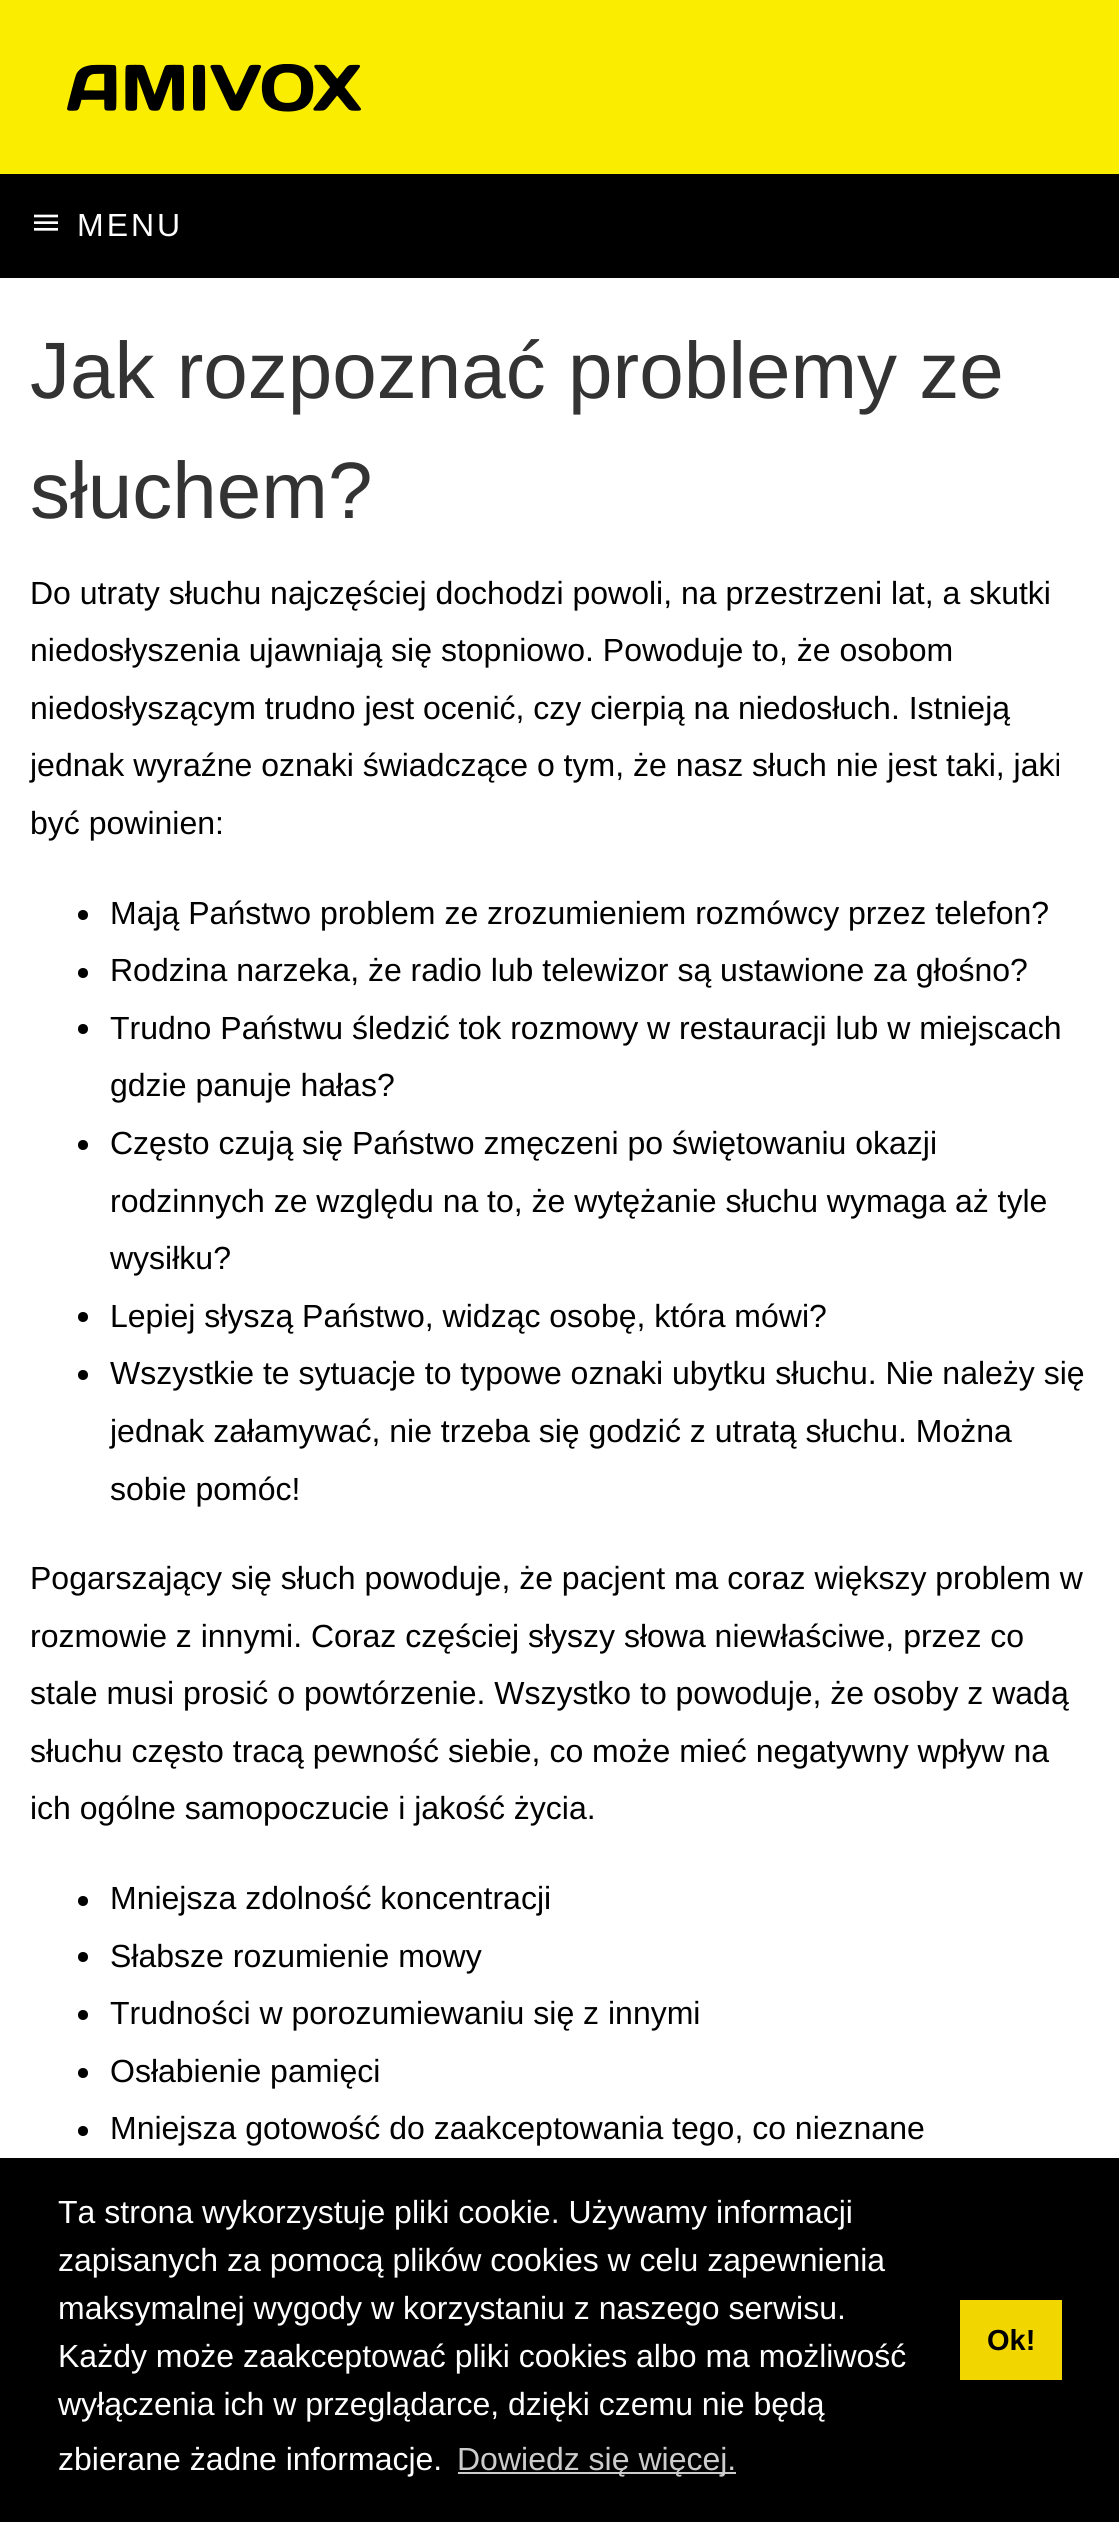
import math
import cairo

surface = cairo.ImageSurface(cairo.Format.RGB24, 1119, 2522)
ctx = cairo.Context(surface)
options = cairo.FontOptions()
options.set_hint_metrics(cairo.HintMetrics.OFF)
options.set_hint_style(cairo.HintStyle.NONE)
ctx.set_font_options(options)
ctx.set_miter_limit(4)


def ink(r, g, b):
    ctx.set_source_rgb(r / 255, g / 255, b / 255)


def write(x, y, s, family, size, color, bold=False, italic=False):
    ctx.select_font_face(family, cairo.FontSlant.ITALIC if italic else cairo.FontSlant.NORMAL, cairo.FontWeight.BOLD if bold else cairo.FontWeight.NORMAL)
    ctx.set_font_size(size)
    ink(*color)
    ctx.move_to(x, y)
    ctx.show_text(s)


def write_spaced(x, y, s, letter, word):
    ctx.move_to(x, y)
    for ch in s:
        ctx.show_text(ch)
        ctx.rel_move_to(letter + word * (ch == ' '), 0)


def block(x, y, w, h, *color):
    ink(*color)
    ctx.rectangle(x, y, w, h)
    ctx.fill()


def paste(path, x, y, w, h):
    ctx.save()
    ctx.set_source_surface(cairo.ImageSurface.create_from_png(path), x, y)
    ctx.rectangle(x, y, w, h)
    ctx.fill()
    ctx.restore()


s1 = dict(family="Liberation Sans", size=80, color=(51, 51, 51))
s2 = dict(family="Liberation Sans", size=32, color=(0, 0, 0))
s3 = dict(family="Liberation Sans", size=32, color=(255, 255, 255))
s4 = dict(family="Liberation Sans", size=32, color=(204, 204, 204))
s5 = dict(family="Liberation Sans", size=29, color=(0, 0, 0), bold=True)

ink(255, 255, 255)
ctx.paint()
block(0, 0, 1119, 174, 250, 237, 0)
paste("pic1.png", 67, 64, 294, 48)
block(0, 174, 1119, 104, 0, 0, 0)
paste("pic2.png", 34, 214, 24, 17)
ctx.select_font_face("Liberation Sans")
ctx.set_font_size(32)
ink(255, 255, 255)
write_spaced(77, 236, "MENU", 3, 0)
write(30, 398, "Jak rozpoznać problemy ze", **s1)
write(30, 518, "słuchem?", **s1)
write(30, 604, "Do utraty słuchu najczęściej dochodzi powoli, na przestrzeni lat, a skutki", **s2)
write(30, 661, "niedosłyszenia ujawniają się stopniowo. Powoduje to, że osobom", **s2)
write(30, 719, "niedosłyszącym trudno jest ocenić, czy cierpią na niedosłuch. Istnieją", **s2)
write(30, 776, "jednak wyraźne oznaki świadczące o tym, że nasz słuch nie jest taki, jaki", **s2)
write(30, 834, "być powinien:", **s2)
ctx.new_path()
ctx.arc(83, 915, 5, 0, 2 * math.pi)
ctx.fill()
write(110, 924, "Mają Państwo problem ze zrozumieniem rozmówcy przez telefon?", **s2)
ctx.new_path()
ctx.arc(83, 973, 5, 0, 2 * math.pi)
ctx.fill()
write(110, 981, "Rodzina narzeka, że radio lub telewizor są ustawione za głośno?", **s2)
ctx.new_path()
ctx.arc(83, 1029, 5, 0, 2 * math.pi)
ctx.fill()
write(110, 1039, "Trudno Państwu śledzić tok rozmowy w restauracji lub w miejscach", **s2)
write(110, 1096, "gdzie panuje hałas?", **s2)
ctx.new_path()
ctx.arc(83, 1145, 5, 0, 2 * math.pi)
ctx.fill()
write(110, 1154, "Często czują się Państwo zmęczeni po świętowaniu okazji", **s2)
write(110, 1212, "rodzinnych ze względu na to, że wytężanie słuchu wymaga aż tyle", **s2)
write(110, 1269, "wysiłku?", **s2)
ctx.new_path()
ctx.arc(83, 1317, 5, 0, 2 * math.pi)
ctx.fill()
write(110, 1327, "Lepiej słyszą Państwo, widząc osobę, która mówi?", **s2)
ctx.new_path()
ctx.arc(83, 1375, 5, 0, 2 * math.pi)
ctx.fill()
write(110, 1384, "Wszystkie te sytuacje to typowe oznaki ubytku słuchu. Nie należy się", **s2)
write(110, 1442, "jednak załamywać, nie trzeba się godzić z utratą słuchu. Można", **s2)
write(110, 1500, "sobie pomóc!", **s2)
write(30, 1589, "Pogarszający się słuch powoduje, że pacjent ma coraz większy problem w", **s2)
write(30, 1647, "rozmowie z innymi. Coraz częściej słyszy słowa niewłaściwe, przez co", **s2)
write(30, 1704, "stale musi prosić o powtórzenie. Wszystko to powoduje, że osoby z wadą", **s2)
write(30, 1762, "słuchu często tracą pewność siebie, co może mieć negatywny wpływ na", **s2)
write(30, 1819, "ich ogólne samopoczucie i jakość życia.", **s2)
ctx.new_path()
ctx.arc(83, 1901, 5, 0, 2 * math.pi)
ctx.fill()
write(110, 1909, "Mniejsza zdolność koncentracji", **s2)
ctx.new_path()
ctx.arc(83, 1957, 5, 0, 2 * math.pi)
ctx.fill()
write(110, 1967, "Słabsze rozumienie mowy", **s2)
ctx.new_path()
ctx.arc(83, 2015, 5, 0, 2 * math.pi)
ctx.fill()
write(110, 2024, "Trudności w porozumiewaniu się z innymi", **s2)
ctx.new_path()
ctx.arc(83, 2073, 5, 0, 2 * math.pi)
ctx.fill()
write(110, 2082, "Osłabienie pamięci", **s2)
ctx.new_path()
ctx.arc(83, 2131, 5, 0, 2 * math.pi)
ctx.fill()
write(110, 2139, "Mniejsza gotowość do zaakceptowania tego, co nieznane", **s2)
block(0, 2158, 1119, 364, 0, 0, 0)
write(58, 2223, "Ta strona wykorzystuje pliki cookie. Używamy informacji", **s3)
write(58, 2271, "zapisanych za pomocą plików cookies w celu zapewnienia", **s3)
write(58, 2319, "maksymalnej wygody w korzystaniu z naszego serwisu.", **s3)
write(58, 2367, "Każdy może zaakceptować pliki cookies albo ma możliwość", **s3)
write(58, 2415, "wyłączenia ich w przeglądarce, dzięki czemu nie będą", **s3)
write(58, 2470, "zbierane żadne informacje.", **s3)
block(458, 2472, 278, 2, 204, 204, 204)
write(457, 2470, "Dowiedz się więcej.", **s4)
block(960, 2300, 102, 80, 241, 214, 0)
write(987, 2350, "Ok!", **s5)
surface.write_to_png("screenshot.png")
